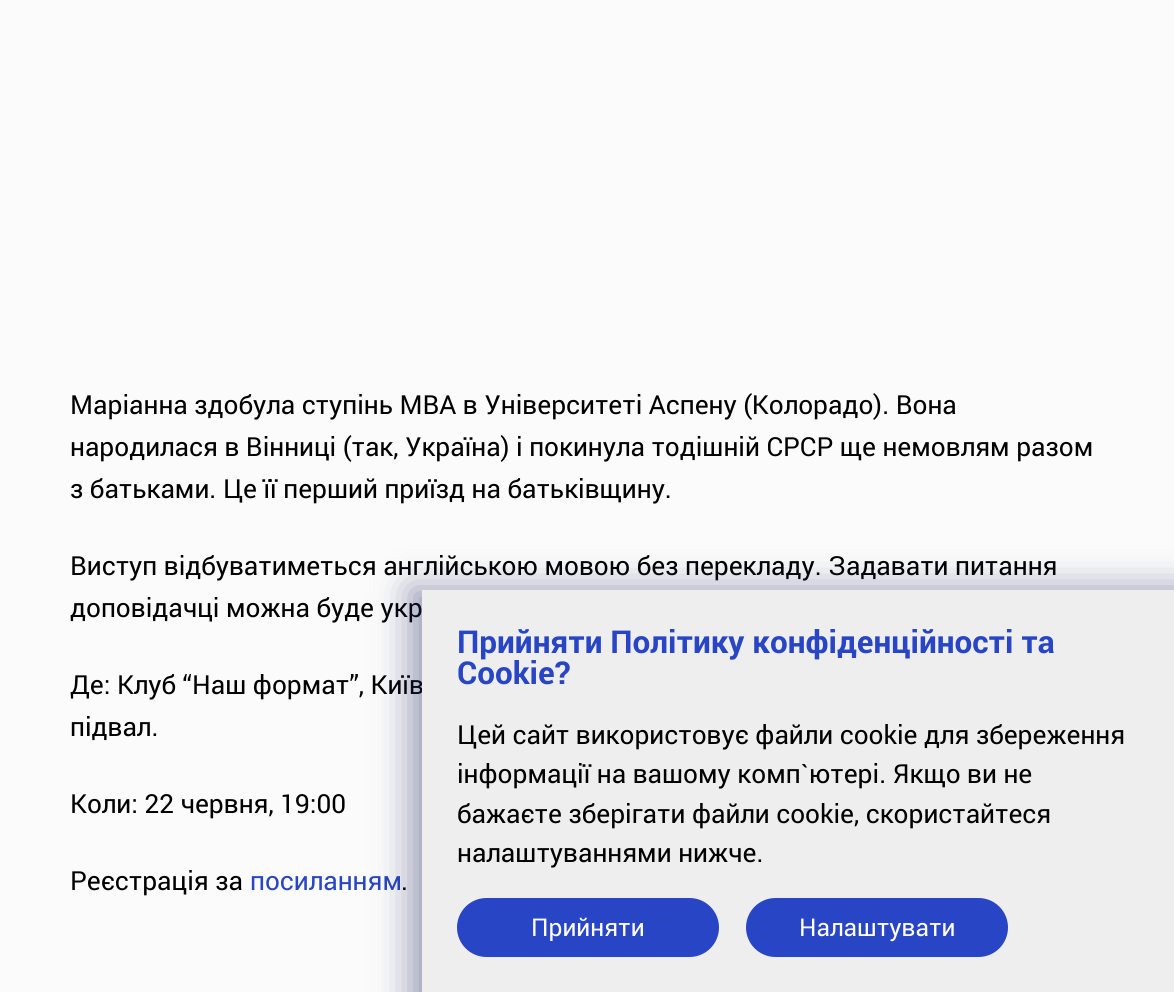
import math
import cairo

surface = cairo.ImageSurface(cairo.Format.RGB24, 1174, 992)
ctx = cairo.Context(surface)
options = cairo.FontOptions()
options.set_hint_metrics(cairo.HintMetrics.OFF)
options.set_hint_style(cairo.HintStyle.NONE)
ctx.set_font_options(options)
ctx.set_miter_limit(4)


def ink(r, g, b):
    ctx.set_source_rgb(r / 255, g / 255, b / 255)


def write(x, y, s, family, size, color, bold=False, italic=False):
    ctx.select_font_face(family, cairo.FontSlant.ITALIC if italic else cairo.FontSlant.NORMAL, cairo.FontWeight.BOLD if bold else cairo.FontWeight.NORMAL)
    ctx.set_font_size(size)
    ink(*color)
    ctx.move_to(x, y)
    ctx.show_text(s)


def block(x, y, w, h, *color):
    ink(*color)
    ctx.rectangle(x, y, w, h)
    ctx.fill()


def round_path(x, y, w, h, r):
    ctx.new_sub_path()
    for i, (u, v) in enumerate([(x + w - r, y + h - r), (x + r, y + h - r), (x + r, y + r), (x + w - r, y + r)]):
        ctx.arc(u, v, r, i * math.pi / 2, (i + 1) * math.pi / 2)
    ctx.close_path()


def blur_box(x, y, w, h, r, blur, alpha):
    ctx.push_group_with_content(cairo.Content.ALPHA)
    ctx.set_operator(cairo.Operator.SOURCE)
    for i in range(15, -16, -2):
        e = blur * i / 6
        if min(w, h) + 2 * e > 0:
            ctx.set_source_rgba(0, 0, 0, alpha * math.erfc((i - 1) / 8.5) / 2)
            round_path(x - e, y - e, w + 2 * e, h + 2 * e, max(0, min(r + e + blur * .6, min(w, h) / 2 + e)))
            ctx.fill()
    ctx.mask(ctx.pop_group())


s1 = dict(family="Roboto", size=26.25, color=(0, 0, 0))
s2 = dict(family="Roboto", size=26.25, color=(39, 69, 196))
s3 = dict(family="Roboto", size=31.5, color=(39, 69, 196), bold=True)
s4 = dict(family="Roboto", size=24.5, color=(255, 255, 255))

ink(251, 251, 251)
ctx.paint()
write(70, 414, "Маріанна здобула ступінь MBA в Університеті Аспену (Колорадо). Вона", **s1)
write(70, 456, "народилася в Вінниці (так, Україна) і покинула тодішній СРСР ще немовлям разом", **s1)
write(70, 498, "з батьками. Це її перший приїзд на батьківщину.", **s1)
write(70, 575, "Виступ відбуватиметься англійською мовою без перекладу. Задавати питання", **s1)
write(70, 617, "доповідачці можна буде укр", **s1)
write(70, 694, "Де: Клуб “Наш формат”, Київ", **s1)
write(70, 736, "підвал.", **s1)
write(70, 813, "Коли: 22 червня, 19:00", **s1)
write(70, 890, "Реєстрація за", **s1)
write(250, 890, "посиланням", **s2)
write(401, 890, ".", **s1)
ink(34, 41, 97)
blur_box(410, 588, 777, 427, 0, 17.5, 0.45)
block(422, 590, 752, 402, 239, 238, 239)
write(457, 653, "Прийняти Політику конфіденційності та", **s3)
write(457, 684, "Cookie?", **s3)
write(457, 744, "Цей сайт використовує файли cookie для збереження", **s1)
write(457, 783, "інформації на вашому комп`ютері. Якщо ви не", **s1)
write(457, 823, "бажаєте зберігати файли cookie, скористайтеся", **s1)
write(457, 862, "налаштуваннями нижче.", **s1)
ink(39, 69, 196)
round_path(458, 899, 260, 57, 28.5)
ctx.fill_preserve()
ctx.stroke()
write(531, 936, "Прийняти", **s4)
ink(39, 69, 196)
round_path(747, 899, 260, 57, 28.5)
ctx.fill_preserve()
ctx.stroke()
write(799, 936, "Налаштувати", **s4)
surface.write_to_png("screenshot.png")
